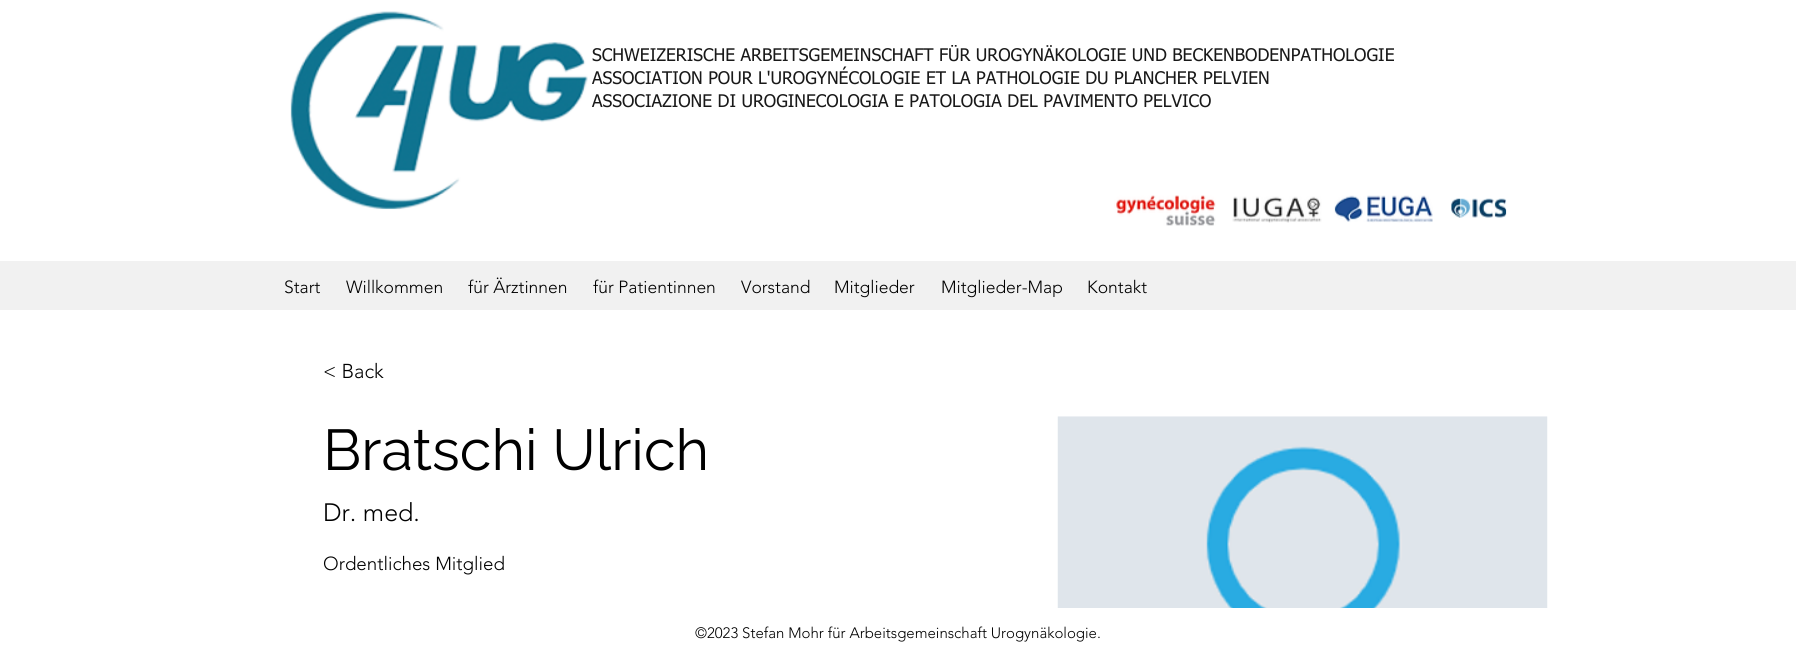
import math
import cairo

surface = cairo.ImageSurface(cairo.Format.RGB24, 1796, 657)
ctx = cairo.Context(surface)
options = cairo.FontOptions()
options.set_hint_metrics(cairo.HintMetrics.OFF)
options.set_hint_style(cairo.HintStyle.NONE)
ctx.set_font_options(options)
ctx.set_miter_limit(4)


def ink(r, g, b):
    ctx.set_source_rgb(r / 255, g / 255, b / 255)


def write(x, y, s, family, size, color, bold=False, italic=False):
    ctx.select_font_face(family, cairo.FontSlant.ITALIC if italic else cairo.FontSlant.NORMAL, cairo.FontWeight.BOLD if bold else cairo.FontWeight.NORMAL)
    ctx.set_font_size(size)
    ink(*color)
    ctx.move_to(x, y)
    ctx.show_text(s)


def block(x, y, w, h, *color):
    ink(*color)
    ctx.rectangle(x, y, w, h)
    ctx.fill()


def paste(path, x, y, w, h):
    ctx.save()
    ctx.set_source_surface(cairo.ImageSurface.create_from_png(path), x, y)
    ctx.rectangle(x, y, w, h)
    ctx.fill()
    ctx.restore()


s1 = dict(family="tahoma", size=17.5, color=(25, 25, 25))
s2 = dict(family="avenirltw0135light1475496 Light", size=17.5, color=(0, 0, 0))
s3 = dict(family="avenirltw0135light1475496 Light", size=20, color=(0, 0, 0))
s4 = dict(family="Raleway", size=57.5, color=(0, 0, 0))
s5 = dict(family="avenirltw0135light1475496 Light", size=25, color=(0, 0, 0))
s6 = dict(family="avenirltw0135light1475496 Light", size=18.75, color=(0, 0, 0))
s7 = dict(family="avenirltw0135light1475496 Light", size=15, color=(0, 0, 0))

ink(255, 255, 255)
ctx.paint()
paste("pic1.png", 290, 11, 298, 199)
write(592, 61, "SCHWEIZERISCHE ARBEITSGEMEINSCHAFT FÜR UROGYNÄKOLOGIE UND BECKENBODENPATHOLOGIE", **s1)
write(592, 84, "ASSOCIATION POUR L'UROGYNÉCOLOGIE ET LA PATHOLOGIE DU PLANCHER PELVIEN", **s1)
write(592, 107, "ASSOCIAZIONE DI UROGINECOLOGIA E PATOLOGIA DEL PAVIMENTO PELVICO", **s1)
paste("pic2.png", 1114, 195, 102, 31)
paste("pic3.png", 1232, 196, 90, 27)
paste("pic4.png", 1334, 195, 99, 28)
paste("pic5.png", 1451, 198, 56, 20)
block(0, 261, 1796, 49, 241, 241, 241)
write(284, 293, "Start", **s2)
write(346, 293, "Willkommen", **s2)
write(468, 293, "für Ärztinnen", **s2)
write(593, 293, "für Patientinnen", **s2)
write(741, 293, "Vorstand", **s2)
write(834, 293, "Mitglieder", **s2)
write(941, 293, "Mitglieder-Map", **s2)
write(1087, 293, "Kontakt", **s2)
write(323, 378, "< Back", **s3)
write(323, 470, "Bratschi Ulrich", **s4)
write(323, 521, "Dr. med.", **s5)
write(323, 570, "Ordentliches Mitglied", **s6)
paste("pic6.png", 1057, 416, 491, 192)
write(695, 638, "©2023 Stefan Mohr für Arbeitsgemeinschaft Urogynäkologie.", **s7)
surface.write_to_png("screenshot.png")
